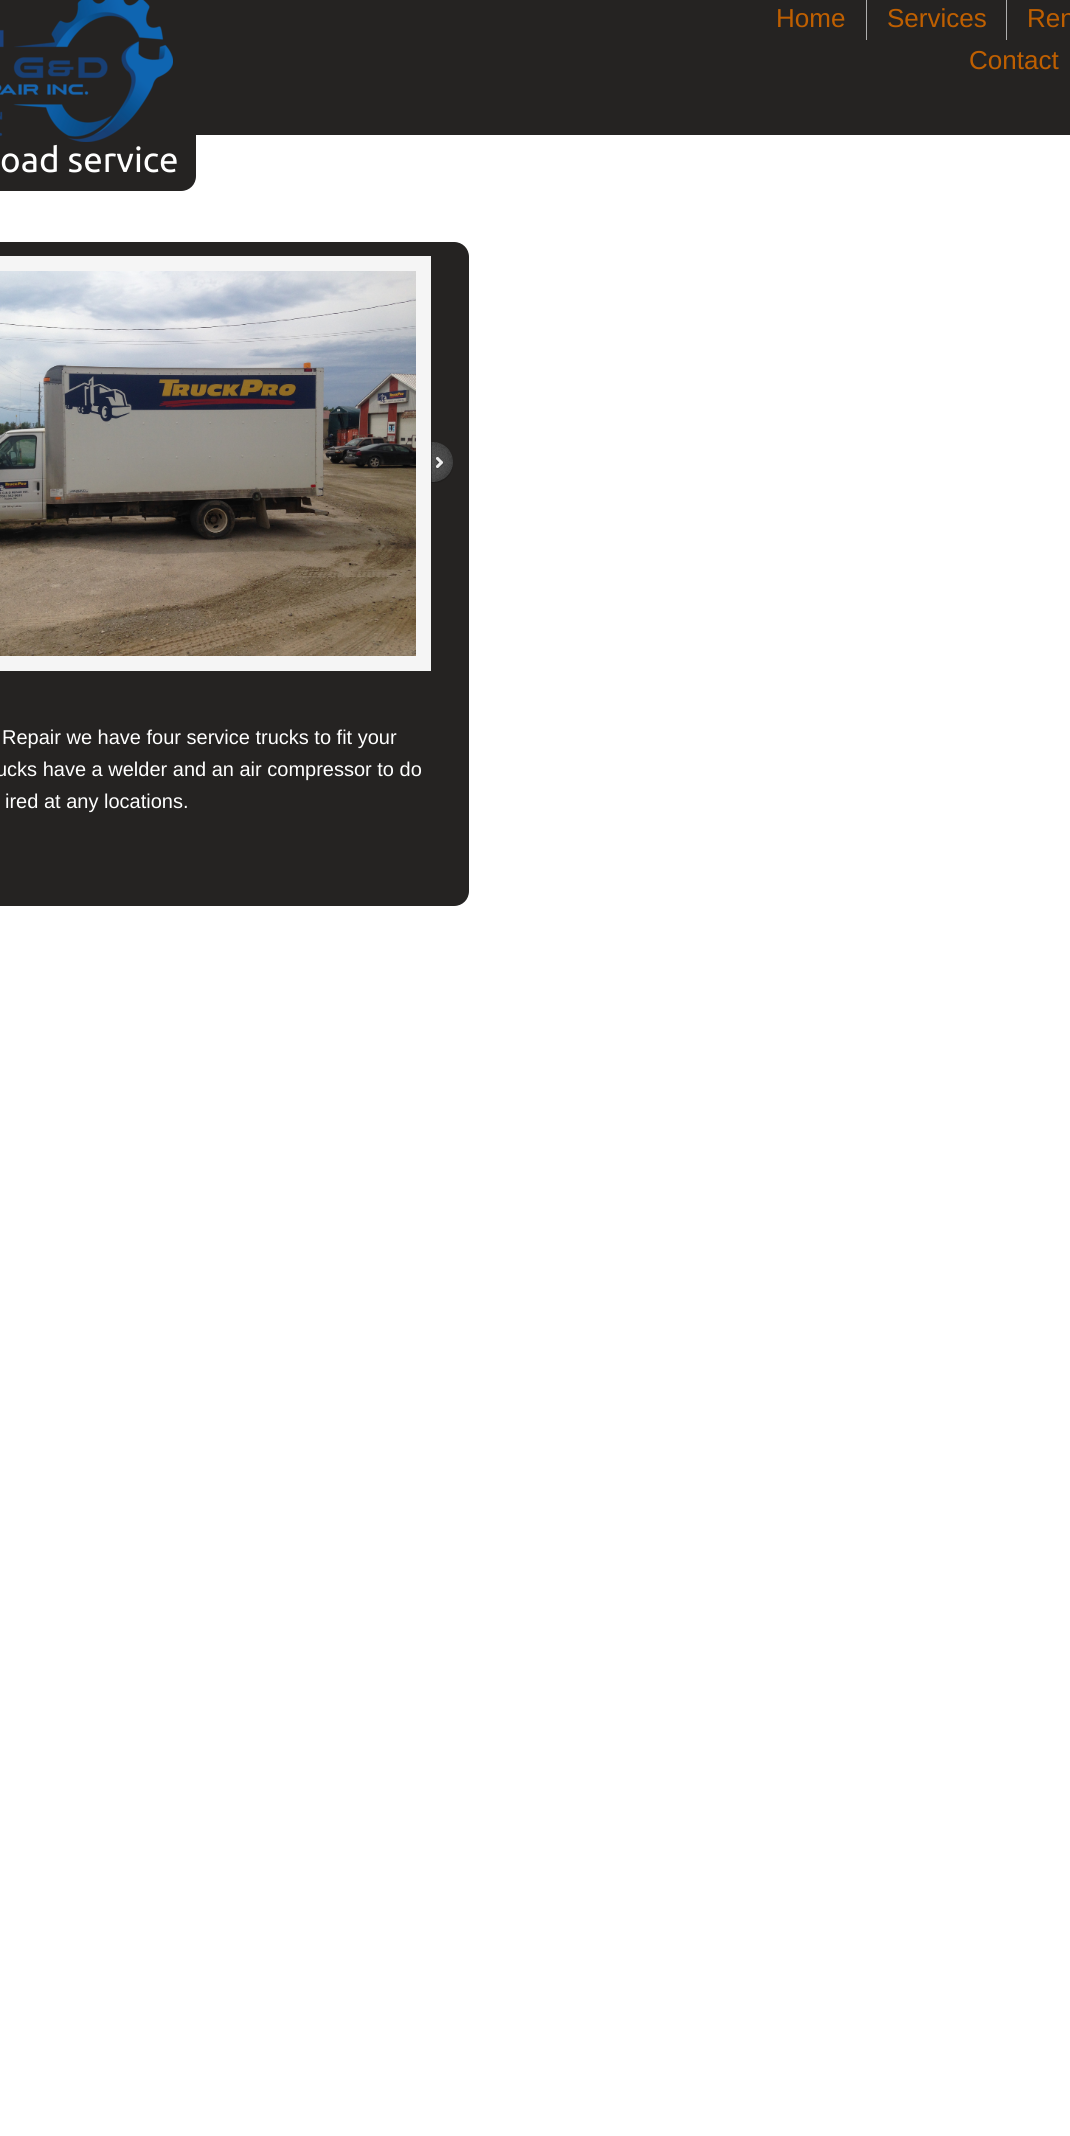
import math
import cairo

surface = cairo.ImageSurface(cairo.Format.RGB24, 1070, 2136)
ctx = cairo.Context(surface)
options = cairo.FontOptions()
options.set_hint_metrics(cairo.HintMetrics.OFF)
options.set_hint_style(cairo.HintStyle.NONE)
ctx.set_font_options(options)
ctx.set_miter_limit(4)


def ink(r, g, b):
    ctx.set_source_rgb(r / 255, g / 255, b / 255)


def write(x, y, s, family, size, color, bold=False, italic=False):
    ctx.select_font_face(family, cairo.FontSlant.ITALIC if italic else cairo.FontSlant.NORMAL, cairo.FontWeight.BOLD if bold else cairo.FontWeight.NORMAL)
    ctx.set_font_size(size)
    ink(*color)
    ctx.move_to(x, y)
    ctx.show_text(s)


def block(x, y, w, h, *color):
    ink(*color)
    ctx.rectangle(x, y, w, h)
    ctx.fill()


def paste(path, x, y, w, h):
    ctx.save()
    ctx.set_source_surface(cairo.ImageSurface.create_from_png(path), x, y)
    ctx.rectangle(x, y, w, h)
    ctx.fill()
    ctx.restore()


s1 = dict(family="Liberation Sans", size=26, color=(191, 95, 0))
s2 = dict(family="Ubuntu", size=35, color=(255, 255, 255))
s3 = dict(family="Liberation Sans", size=20, color=(255, 255, 255))

ink(255, 255, 255)
ctx.paint()
ink(37, 35, 34)
ctx.new_path()
ctx.move_to(0, 90)
ctx.line_to(181, 90)
ctx.curve_to(189.5, 90, 196, 96.5, 196, 105)
ctx.line_to(196, 176)
ctx.curve_to(196, 184.5, 189.5, 191, 181, 191)
ctx.line_to(0, 191)
ctx.close_path()
ctx.fill()
block(0, 0, 1070, 135, 37, 35, 34)
paste("pic1.png", 0, 0, 173, 142)
block(866, 0, 1, 40, 174, 174, 174)
write(776, 27, "Home", **s1)
block(1006, 0, 1, 40, 174, 174, 174)
write(887, 27, "Services", **s1)
write(1027, 27, "Ren", **s1)
write(969, 69, "Contact", **s1)
write(0, 172, "oad service", **s2)
ink(37, 35, 34)
ctx.new_path()
ctx.move_to(0, 242)
ctx.line_to(454, 242)
ctx.curve_to(462.5, 242, 469, 248.5, 469, 257)
ctx.line_to(469, 891)
ctx.curve_to(469, 899.5, 462.5, 906, 454, 906)
ctx.line_to(0, 906)
ctx.close_path()
ctx.fill()
ctx.rectangle(-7.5, 263.5, 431, 400)
ink(245, 245, 245)
ctx.set_line_width(15)
ctx.stroke()
paste("pic2.png", 0, 271, 416, 385)
paste("pic3.png", 431, 442, 22, 41)
write(2, 744, "Repair we have four service trucks to fit your", **s3)
write(-4, 776, "ucks have a welder and an air compressor to do", **s3)
write(5, 808, "ired at any locations.", **s3)
surface.write_to_png("screenshot.png")
